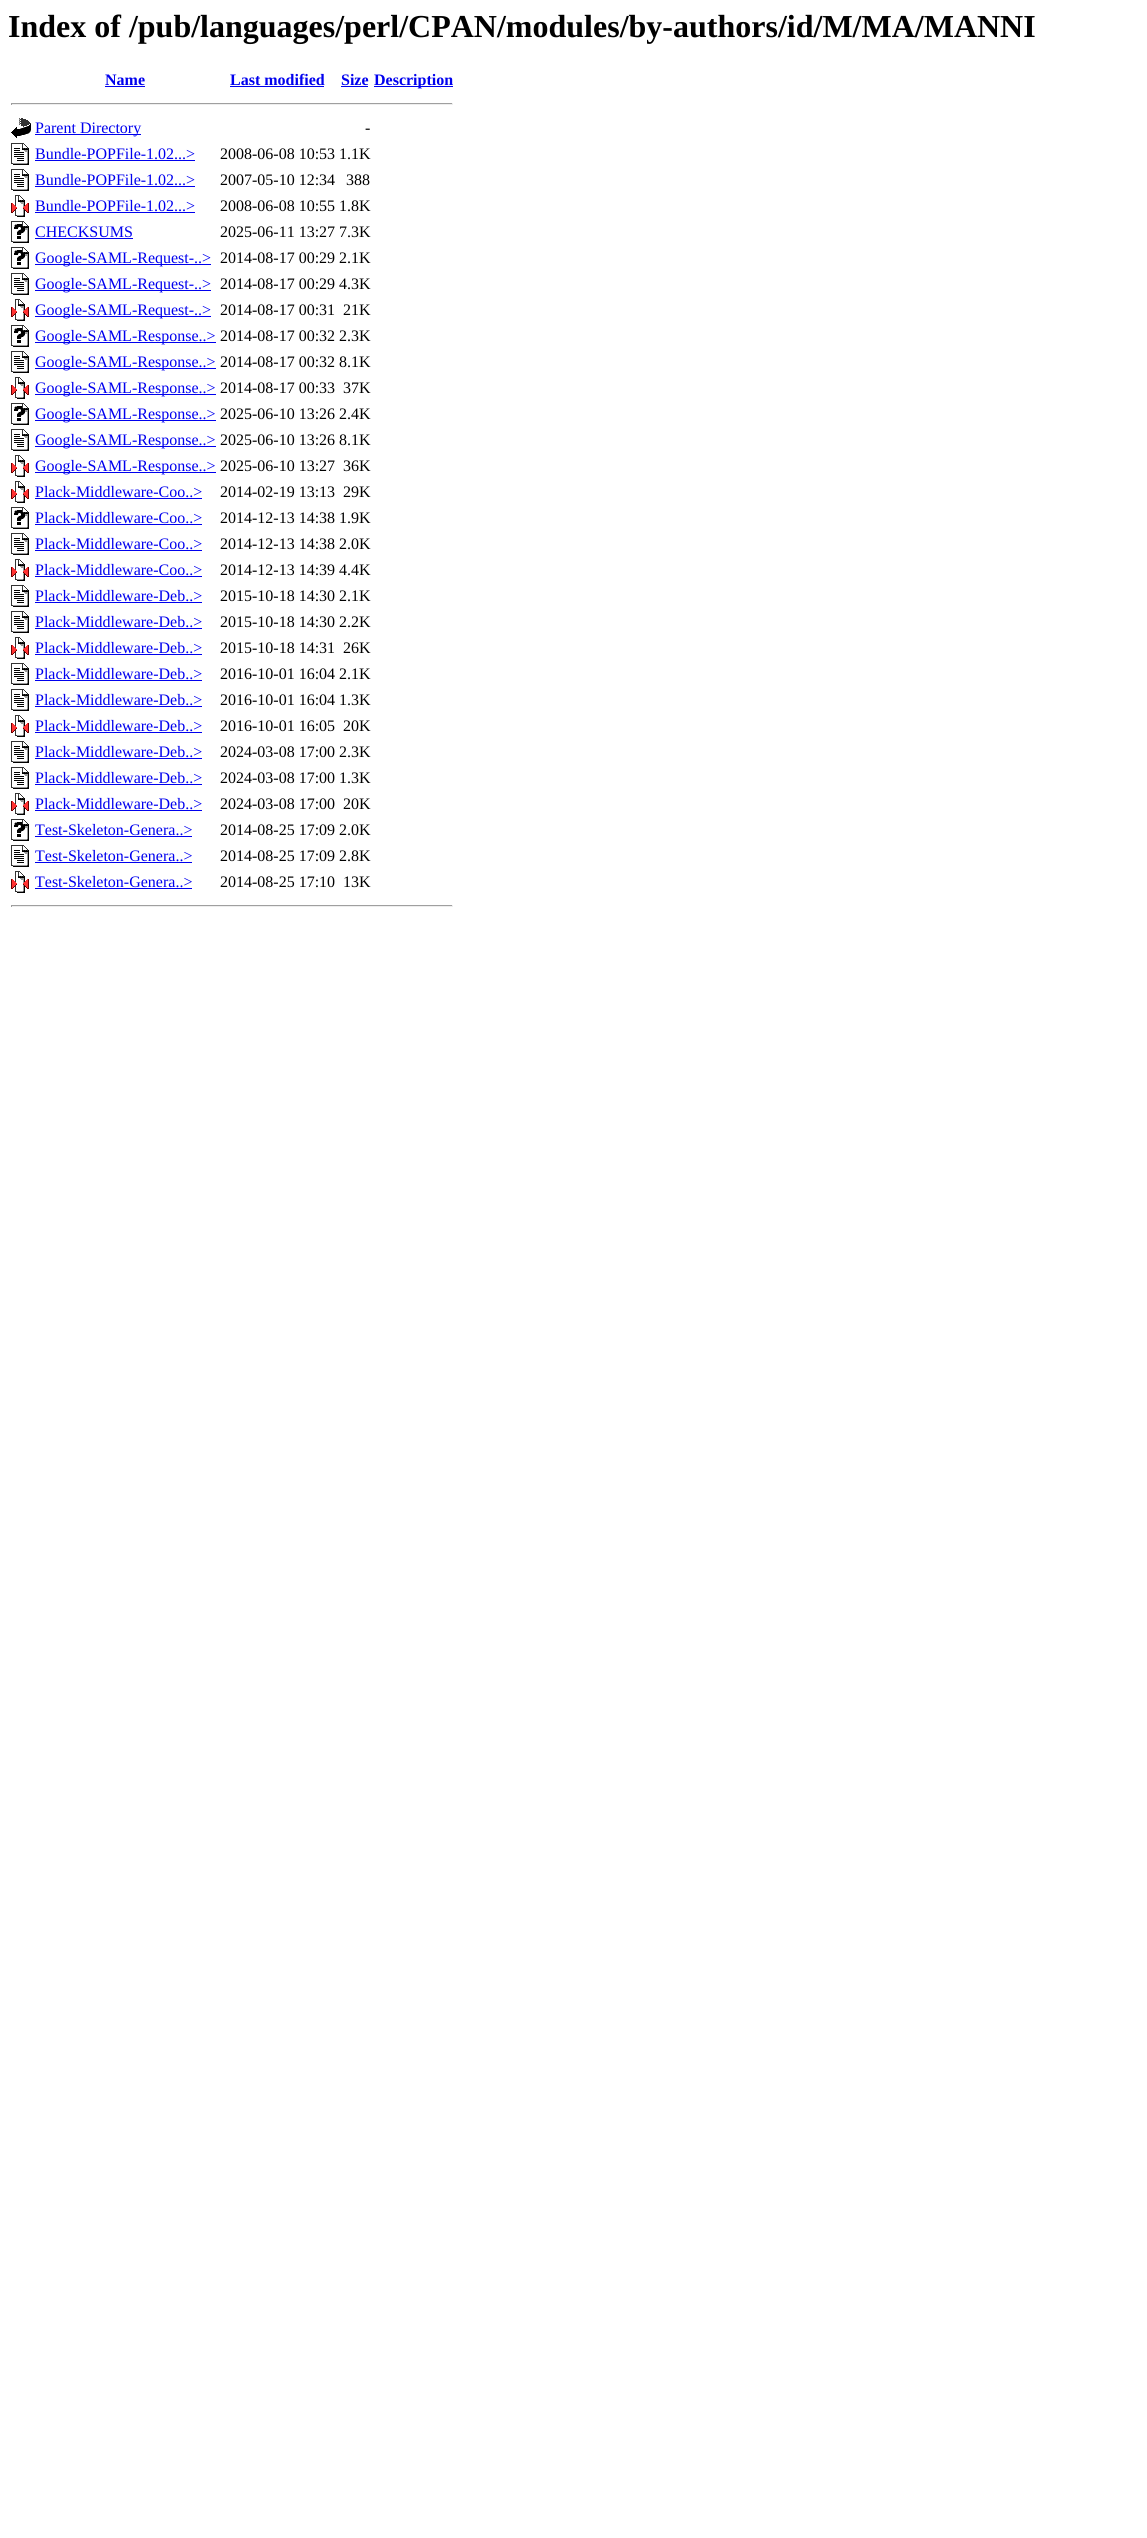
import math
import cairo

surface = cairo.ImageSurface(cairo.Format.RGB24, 1147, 2538)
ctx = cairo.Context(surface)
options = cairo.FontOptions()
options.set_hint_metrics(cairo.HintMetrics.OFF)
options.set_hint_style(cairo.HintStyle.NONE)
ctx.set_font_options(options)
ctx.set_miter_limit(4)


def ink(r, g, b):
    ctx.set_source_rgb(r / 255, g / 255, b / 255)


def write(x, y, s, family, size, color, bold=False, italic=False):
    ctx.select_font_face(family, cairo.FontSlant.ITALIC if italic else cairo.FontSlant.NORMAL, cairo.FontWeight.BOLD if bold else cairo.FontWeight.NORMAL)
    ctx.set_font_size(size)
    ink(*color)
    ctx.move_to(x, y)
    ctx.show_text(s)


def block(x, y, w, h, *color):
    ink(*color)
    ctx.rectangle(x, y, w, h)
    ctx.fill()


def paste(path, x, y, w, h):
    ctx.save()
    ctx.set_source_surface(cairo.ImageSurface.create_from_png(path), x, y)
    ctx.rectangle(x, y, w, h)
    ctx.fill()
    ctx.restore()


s1 = dict(family="Liberation Serif", size=32, color=(0, 0, 0), bold=True)
s2 = dict(family="Liberation Serif", size=16, color=(0, 0, 238), bold=True)
s3 = dict(family="Liberation Serif", size=16, color=(0, 0, 238))
s4 = dict(family="Liberation Serif", size=16, color=(0, 0, 0))

ink(255, 255, 255)
ctx.paint()
write(8, 37, "Index of /pub/languages/perl/CPAN/modules/by-authors/id/M/MA/MANNI", **s1)
write(105, 85, "Name", **s2)
block(105, 86, 40, 1, 0, 0, 238)
write(230, 85, "Last modified", **s2)
block(230, 86, 94, 1, 0, 0, 238)
write(341, 85, "Size", **s2)
block(341, 86, 27, 1, 0, 0, 238)
block(374, 86, 79, 1, 0, 0, 238)
write(374, 85, "Description", **s2)
block(11, 103, 442, 1, 159, 159, 159)
block(452, 103, 1, 2, 238, 238, 238)
block(11, 104, 442, 1, 238, 238, 238)
block(11, 103, 1, 2, 159, 159, 159)
paste("pic1.png", 11, 118, 20, 20)
block(35, 134, 106, 1, 0, 0, 238)
write(35, 133, "Parent Directory", **s3)
write(365, 133, "-", **s4)
paste("pic2.png", 11, 143, 18, 22)
write(35, 159, "Bundle-POPFile-1.02...>", **s3)
block(35, 160, 160, 1, 0, 0, 238)
write(220, 159, "2008-06-08 10:53 1.1K", **s4)
paste("pic2.png", 11, 169, 18, 22)
write(35, 185, "Bundle-POPFile-1.02...>", **s3)
block(35, 186, 160, 1, 0, 0, 238)
write(220, 185, "2007-05-10 12:34", **s4)
write(346, 185, "388", **s4)
paste("pic3.png", 11, 195, 18, 22)
write(35, 211, "Bundle-POPFile-1.02...>", **s3)
block(35, 212, 160, 1, 0, 0, 238)
write(220, 211, "2008-06-08 10:55 1.8K", **s4)
paste("pic4.png", 11, 221, 18, 22)
write(35, 237, "CHECKSUMS", **s3)
block(35, 238, 98, 1, 0, 0, 238)
write(220, 237, "2025-06-11 13:27 7.3K", **s4)
paste("pic4.png", 11, 247, 18, 22)
block(35, 264, 176, 1, 0, 0, 238)
write(35, 263, "Google-SAML-Request-..>", **s3)
write(220, 263, "2014-08-17 00:29 2.1K", **s4)
paste("pic2.png", 11, 273, 18, 22)
block(35, 290, 176, 1, 0, 0, 238)
write(35, 289, "Google-SAML-Request-..>", **s3)
write(220, 289, "2014-08-17 00:29 4.3K", **s4)
paste("pic3.png", 11, 299, 18, 22)
block(35, 316, 176, 1, 0, 0, 238)
write(35, 315, "Google-SAML-Request-..>", **s3)
write(220, 315, "2014-08-17 00:31", **s4)
write(343, 315, "21K", **s4)
paste("pic4.png", 11, 325, 18, 22)
block(35, 342, 181, 1, 0, 0, 238)
write(35, 341, "Google-SAML-Response..>", **s3)
write(220, 341, "2014-08-17 00:32 2.3K", **s4)
paste("pic2.png", 11, 351, 18, 22)
block(35, 368, 181, 1, 0, 0, 238)
write(35, 367, "Google-SAML-Response..>", **s3)
write(220, 367, "2014-08-17 00:32 8.1K", **s4)
paste("pic3.png", 11, 377, 18, 22)
block(35, 394, 181, 1, 0, 0, 238)
write(35, 393, "Google-SAML-Response..>", **s3)
write(220, 393, "2014-08-17 00:33", **s4)
write(343, 393, "37K", **s4)
paste("pic4.png", 11, 403, 18, 22)
block(35, 420, 181, 1, 0, 0, 238)
write(35, 419, "Google-SAML-Response..>", **s3)
write(220, 419, "2025-06-10 13:26 2.4K", **s4)
paste("pic2.png", 11, 429, 18, 22)
block(35, 446, 181, 1, 0, 0, 238)
write(35, 445, "Google-SAML-Response..>", **s3)
write(220, 445, "2025-06-10 13:26 8.1K", **s4)
paste("pic3.png", 11, 455, 18, 22)
block(35, 472, 181, 1, 0, 0, 238)
write(35, 471, "Google-SAML-Response..>", **s3)
write(220, 471, "2025-06-10 13:27", **s4)
write(343, 471, "36K", **s4)
paste("pic3.png", 11, 481, 18, 22)
write(35, 497, "Plack-Middleware-Coo..>", **s3)
block(35, 498, 167, 1, 0, 0, 238)
write(220, 497, "2014-02-19 13:13", **s4)
write(343, 497, "29K", **s4)
paste("pic4.png", 11, 507, 18, 22)
write(35, 523, "Plack-Middleware-Coo..>", **s3)
block(35, 524, 167, 1, 0, 0, 238)
write(220, 523, "2014-12-13 14:38 1.9K", **s4)
paste("pic2.png", 11, 533, 18, 22)
write(35, 549, "Plack-Middleware-Coo..>", **s3)
block(35, 550, 167, 1, 0, 0, 238)
write(220, 549, "2014-12-13 14:38 2.0K", **s4)
paste("pic3.png", 11, 559, 18, 22)
write(35, 575, "Plack-Middleware-Coo..>", **s3)
block(35, 576, 167, 1, 0, 0, 238)
write(220, 575, "2014-12-13 14:39 4.4K", **s4)
paste("pic2.png", 11, 585, 18, 22)
write(35, 601, "Plack-Middleware-Deb..>", **s3)
block(35, 602, 167, 1, 0, 0, 238)
write(220, 601, "2015-10-18 14:30 2.1K", **s4)
paste("pic2.png", 11, 611, 18, 22)
write(35, 627, "Plack-Middleware-Deb..>", **s3)
block(35, 628, 167, 1, 0, 0, 238)
write(220, 627, "2015-10-18 14:30 2.2K", **s4)
paste("pic3.png", 11, 637, 18, 22)
write(35, 653, "Plack-Middleware-Deb..>", **s3)
block(35, 654, 167, 1, 0, 0, 238)
write(220, 653, "2015-10-18 14:31", **s4)
write(343, 653, "26K", **s4)
paste("pic2.png", 11, 663, 18, 22)
write(35, 679, "Plack-Middleware-Deb..>", **s3)
block(35, 680, 167, 1, 0, 0, 238)
write(220, 679, "2016-10-01 16:04 2.1K", **s4)
paste("pic2.png", 11, 689, 18, 22)
write(35, 705, "Plack-Middleware-Deb..>", **s3)
block(35, 706, 167, 1, 0, 0, 238)
write(220, 705, "2016-10-01 16:04 1.3K", **s4)
paste("pic3.png", 11, 715, 18, 22)
write(35, 731, "Plack-Middleware-Deb..>", **s3)
block(35, 732, 167, 1, 0, 0, 238)
write(220, 731, "2016-10-01 16:05", **s4)
write(343, 731, "20K", **s4)
paste("pic2.png", 11, 741, 18, 22)
write(35, 757, "Plack-Middleware-Deb..>", **s3)
block(35, 758, 167, 1, 0, 0, 238)
write(220, 757, "2024-03-08 17:00 2.3K", **s4)
paste("pic2.png", 11, 767, 18, 22)
write(35, 783, "Plack-Middleware-Deb..>", **s3)
block(35, 784, 167, 1, 0, 0, 238)
write(220, 783, "2024-03-08 17:00 1.3K", **s4)
paste("pic3.png", 11, 793, 18, 22)
write(35, 809, "Plack-Middleware-Deb..>", **s3)
block(35, 810, 167, 1, 0, 0, 238)
write(220, 809, "2024-03-08 17:00", **s4)
write(343, 809, "20K", **s4)
paste("pic4.png", 11, 819, 18, 22)
write(35, 835, "Test-Skeleton-Genera..>", **s3)
block(35, 836, 157, 1, 0, 0, 238)
write(220, 835, "2014-08-25 17:09 2.0K", **s4)
paste("pic2.png", 11, 845, 18, 22)
write(35, 861, "Test-Skeleton-Genera..>", **s3)
block(35, 862, 157, 1, 0, 0, 238)
write(220, 861, "2014-08-25 17:09 2.8K", **s4)
paste("pic3.png", 11, 871, 18, 22)
write(35, 887, "Test-Skeleton-Genera..>", **s3)
block(35, 888, 157, 1, 0, 0, 238)
write(220, 887, "2014-08-25 17:10", **s4)
write(343, 887, "13K", **s4)
block(11, 905, 442, 1, 159, 159, 159)
block(452, 905, 1, 2, 238, 238, 238)
block(11, 906, 442, 1, 238, 238, 238)
block(11, 905, 1, 2, 159, 159, 159)
surface.write_to_png("screenshot.png")
